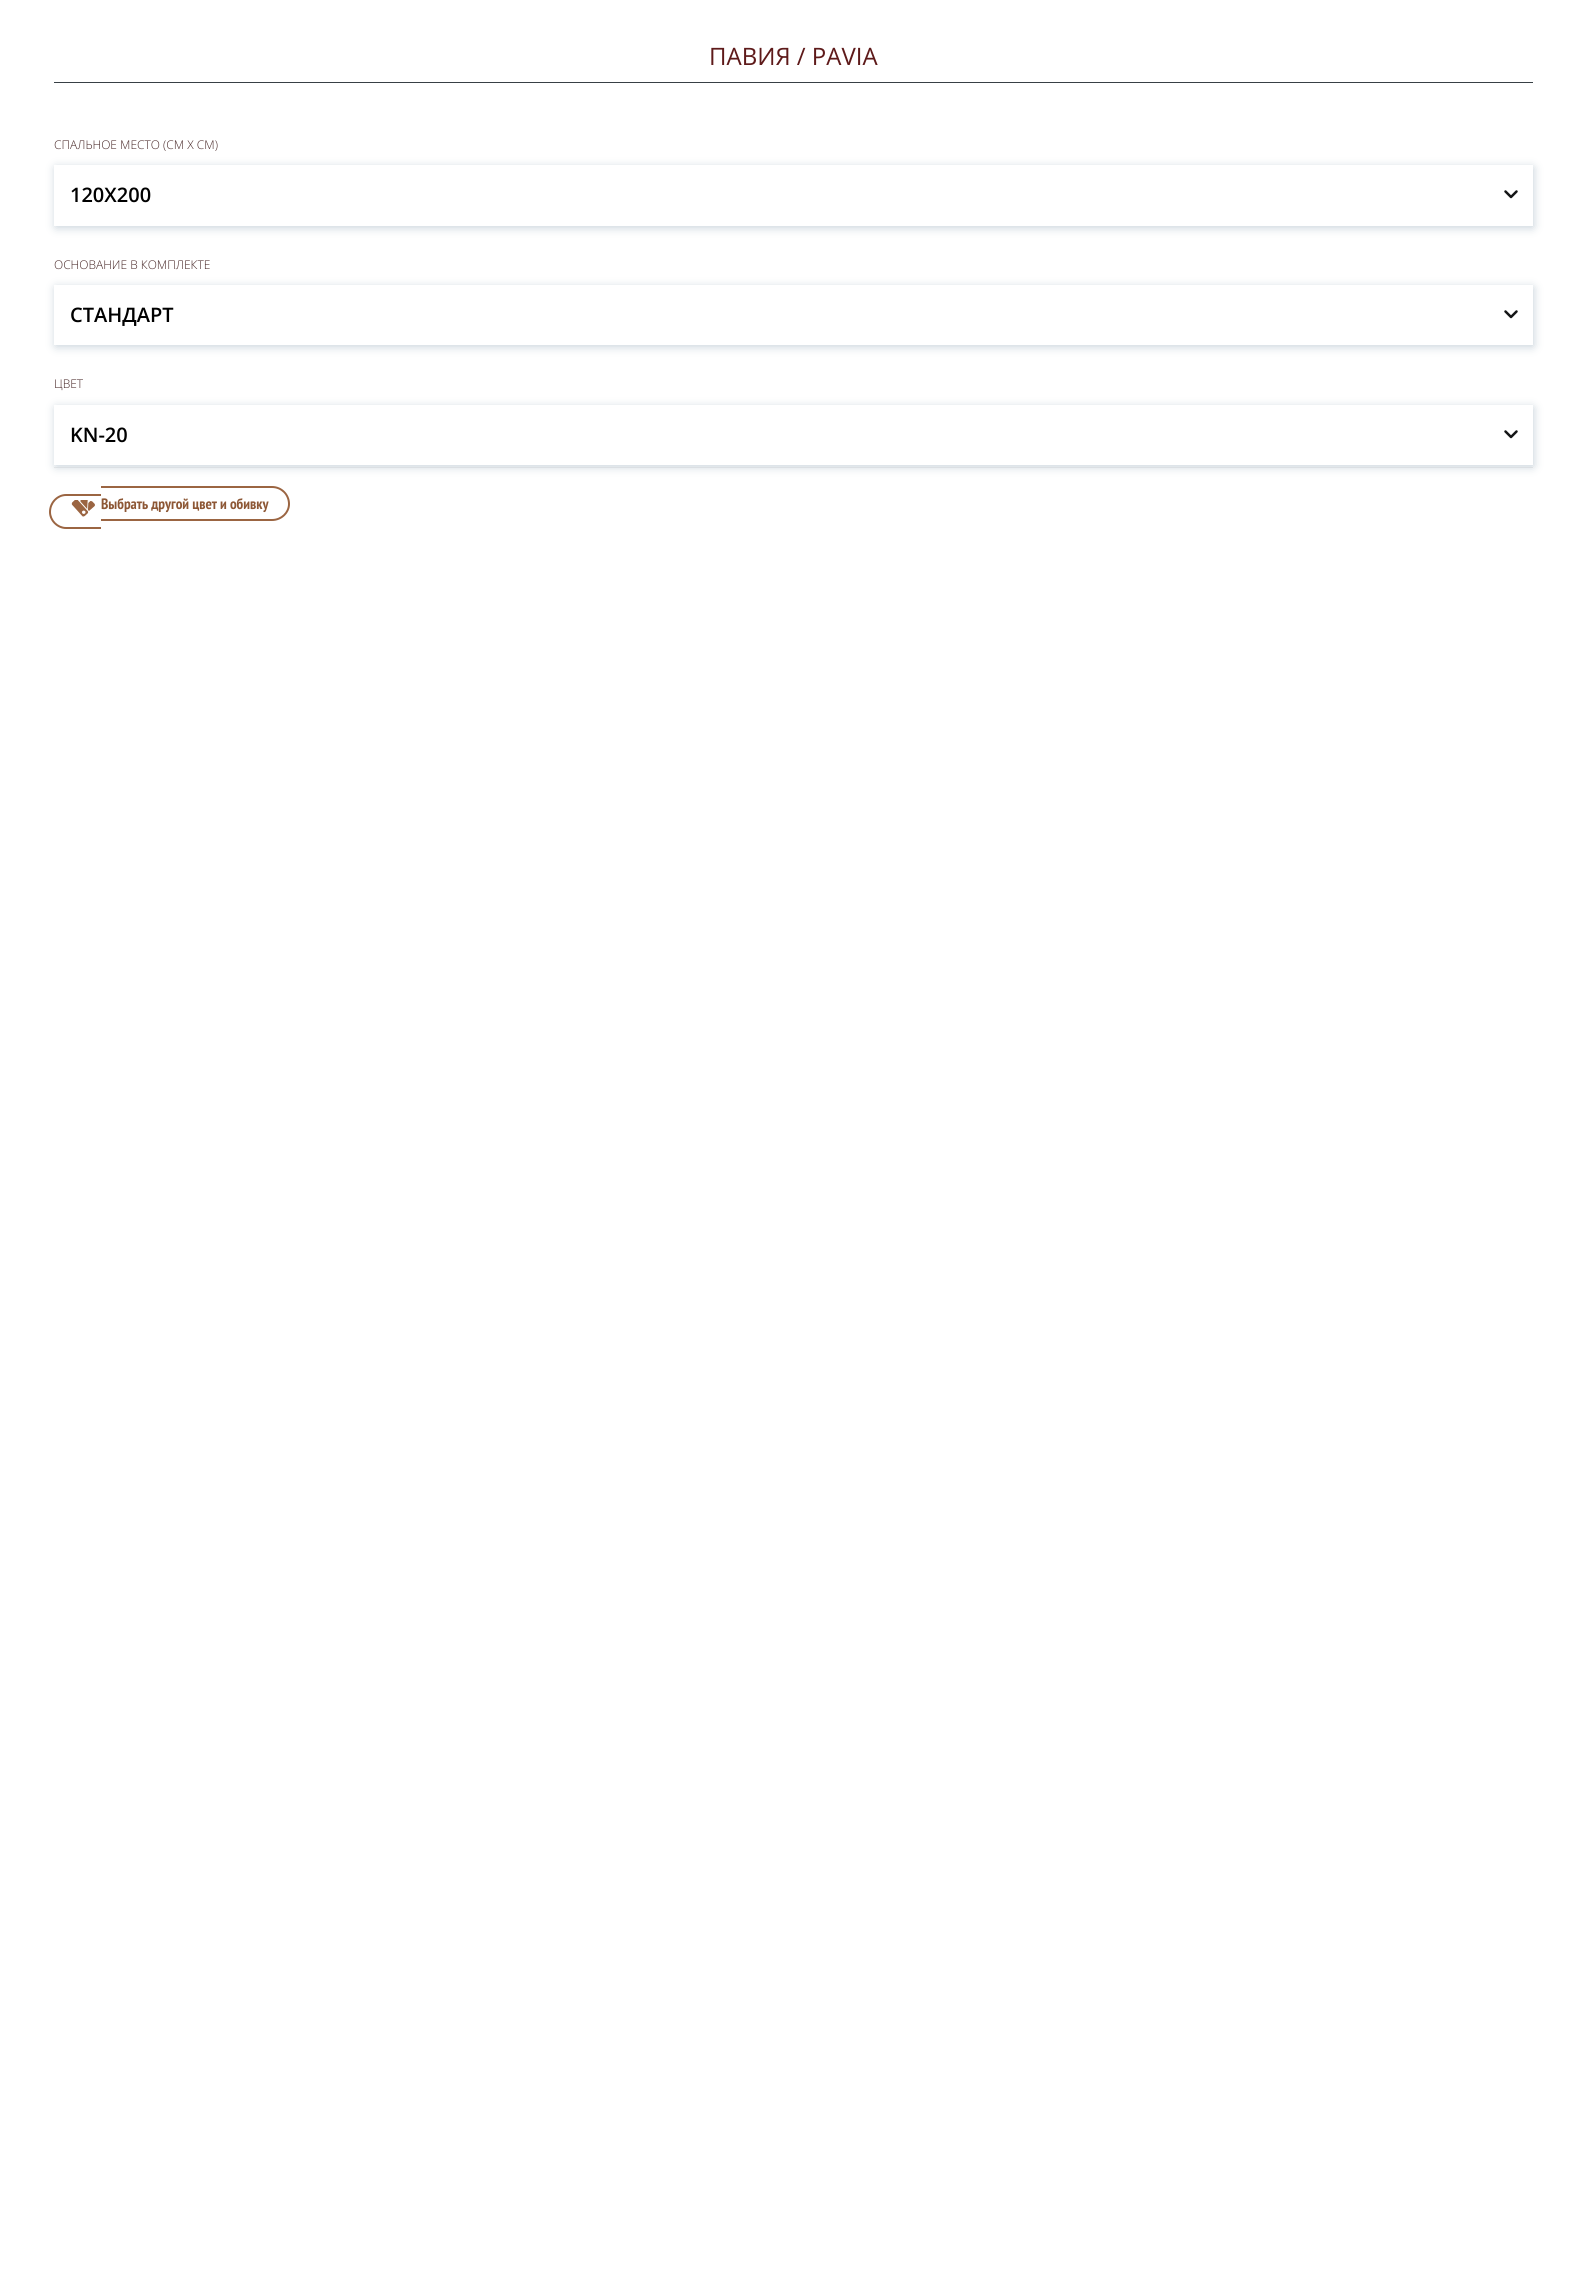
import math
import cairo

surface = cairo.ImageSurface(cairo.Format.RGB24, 1587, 2281)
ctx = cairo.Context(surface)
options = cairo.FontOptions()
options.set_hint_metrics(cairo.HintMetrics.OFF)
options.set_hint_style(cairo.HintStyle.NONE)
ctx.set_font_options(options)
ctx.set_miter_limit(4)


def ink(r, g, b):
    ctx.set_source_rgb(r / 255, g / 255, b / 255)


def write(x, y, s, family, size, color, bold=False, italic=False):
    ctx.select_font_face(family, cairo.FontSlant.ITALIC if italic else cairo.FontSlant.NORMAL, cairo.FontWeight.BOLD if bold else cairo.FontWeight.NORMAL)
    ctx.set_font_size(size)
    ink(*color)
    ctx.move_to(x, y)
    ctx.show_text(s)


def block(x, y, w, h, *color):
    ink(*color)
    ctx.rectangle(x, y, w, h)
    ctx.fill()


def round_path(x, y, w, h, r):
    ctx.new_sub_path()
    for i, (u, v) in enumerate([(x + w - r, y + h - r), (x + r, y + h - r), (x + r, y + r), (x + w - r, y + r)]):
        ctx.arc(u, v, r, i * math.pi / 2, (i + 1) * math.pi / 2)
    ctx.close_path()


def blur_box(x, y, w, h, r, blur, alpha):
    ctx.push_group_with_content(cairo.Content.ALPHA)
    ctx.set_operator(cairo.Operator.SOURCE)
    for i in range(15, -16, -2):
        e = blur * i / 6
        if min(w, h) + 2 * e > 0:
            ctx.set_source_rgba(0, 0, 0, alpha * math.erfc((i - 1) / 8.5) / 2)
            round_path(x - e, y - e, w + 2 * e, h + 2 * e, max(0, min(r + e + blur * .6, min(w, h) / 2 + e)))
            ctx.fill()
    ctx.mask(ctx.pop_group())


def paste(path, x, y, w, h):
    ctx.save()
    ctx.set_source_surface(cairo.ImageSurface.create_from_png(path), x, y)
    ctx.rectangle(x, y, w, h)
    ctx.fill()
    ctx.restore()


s1 = dict(family="Open Sans", size=24, color=(94, 26, 26))
s2 = dict(family="Open Sans Light", size=12, color=(72, 40, 40))
s3 = dict(family="Open Sans SemiBold", size=20, color=(0, 0, 0))
s4 = dict(family="PT Sans Narrow", size=15, color=(141, 87, 53), bold=True)

ink(255, 255, 255)
ctx.paint()
block(54, 82, 1479, 1, 56, 64, 69)
write(709, 65, "ПАВИЯ / PAVIA", **s1)
block(54, 467, 1479, 1, 235, 235, 235)
write(54, 149, "СПАЛЬНОЕ МЕСТО (СМ Х СМ)", **s2)
ctx.save()
ctx.set_fill_rule(cairo.FillRule.EVEN_ODD)
ctx.new_path()
ctx.move_to(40, 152)
ctx.line_to(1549, 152)
ctx.line_to(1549, 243)
ctx.line_to(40, 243)
ctx.close_path()
ctx.move_to(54, 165)
ctx.line_to(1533, 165)
ctx.line_to(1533, 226)
ctx.line_to(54, 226)
ctx.close_path()
ctx.clip()
ink(192, 204, 213)
blur_box(56, 168, 1477, 59, 0, 5, 1)
ctx.restore()
write(70, 202, "120X200", **s3)
ctx.new_path()
ctx.move_to(1516.5, 191.5)
ctx.line_to(1511, 197)
ctx.line_to(1505.5, 191.5)
ink(20, 21, 22)
ctx.set_line_width(2.5)
ctx.set_line_cap(cairo.LineCap.ROUND)
ctx.set_line_join(cairo.LineJoin.ROUND)
ctx.stroke()
write(54, 269, "ОСНОВАНИЕ В КОМПЛЕКТЕ", **s2)
ctx.save()
ctx.set_fill_rule(cairo.FillRule.EVEN_ODD)
ctx.new_path()
ctx.move_to(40, 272)
ctx.line_to(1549, 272)
ctx.line_to(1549, 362)
ctx.line_to(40, 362)
ctx.close_path()
ctx.move_to(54, 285)
ctx.line_to(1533, 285)
ctx.line_to(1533, 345)
ctx.line_to(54, 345)
ctx.close_path()
ctx.clip()
ink(192, 204, 213)
blur_box(56, 288, 1477, 58, 0, 5, 1)
ctx.restore()
write(70, 322, "СТАНДАРТ", **s3)
ctx.new_path()
ctx.move_to(1516.5, 311.5)
ctx.line_to(1511, 317)
ctx.line_to(1505.5, 311.5)
ink(20, 21, 22)
ctx.stroke()
write(54, 388, "ЦВЕТ", **s2)
ctx.save()
ctx.set_fill_rule(cairo.FillRule.EVEN_ODD)
ctx.new_path()
ctx.move_to(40, 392)
ctx.line_to(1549, 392)
ctx.line_to(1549, 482)
ctx.line_to(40, 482)
ctx.close_path()
ctx.move_to(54, 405)
ctx.line_to(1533, 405)
ctx.line_to(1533, 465)
ctx.line_to(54, 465)
ctx.close_path()
ctx.clip()
ink(192, 204, 213)
blur_box(56, 408, 1477, 58, 0, 5, 1)
ctx.restore()
write(70, 442, "KN-20", **s3)
ctx.new_path()
ctx.move_to(1516.5, 431.5)
ctx.line_to(1511, 437)
ctx.line_to(1505.5, 431.5)
ink(20, 21, 22)
ctx.stroke()
ink(155, 101, 66)
ctx.set_fill_rule(cairo.FillRule.EVEN_ODD)
ctx.new_path()
ctx.move_to(66, 494)
ctx.line_to(101, 494)
ctx.line_to(101, 529)
ctx.line_to(66, 529)
ctx.curve_to(57, 529, 49, 521, 49, 512)
ctx.curve_to(49, 502, 57, 494, 66, 494)
ctx.close_path()
ctx.move_to(66, 496)
ctx.line_to(101, 496)
ctx.line_to(101, 527)
ctx.line_to(66, 527)
ctx.curve_to(58, 527, 51, 520, 51, 512)
ctx.curve_to(51, 503, 58, 496, 66, 496)
ctx.close_path()
ctx.fill()
paste("pic1.png", 71, 500, 24, 17)
ctx.new_path()
ctx.move_to(101, 486)
ctx.line_to(272, 486)
ctx.curve_to(282, 486, 290, 494, 290, 504)
ctx.curve_to(290, 513, 282, 521, 272, 521)
ctx.line_to(101, 521)
ctx.close_path()
ctx.move_to(101, 488)
ctx.line_to(272, 488)
ctx.curve_to(281, 488, 288, 495, 288, 504)
ctx.curve_to(288, 512, 281, 519, 272, 519)
ctx.line_to(101, 519)
ctx.close_path()
ctx.fill()
write(101, 509, "Выбрать другой цвет и обивку", **s4)
surface.write_to_png("screenshot.png")
